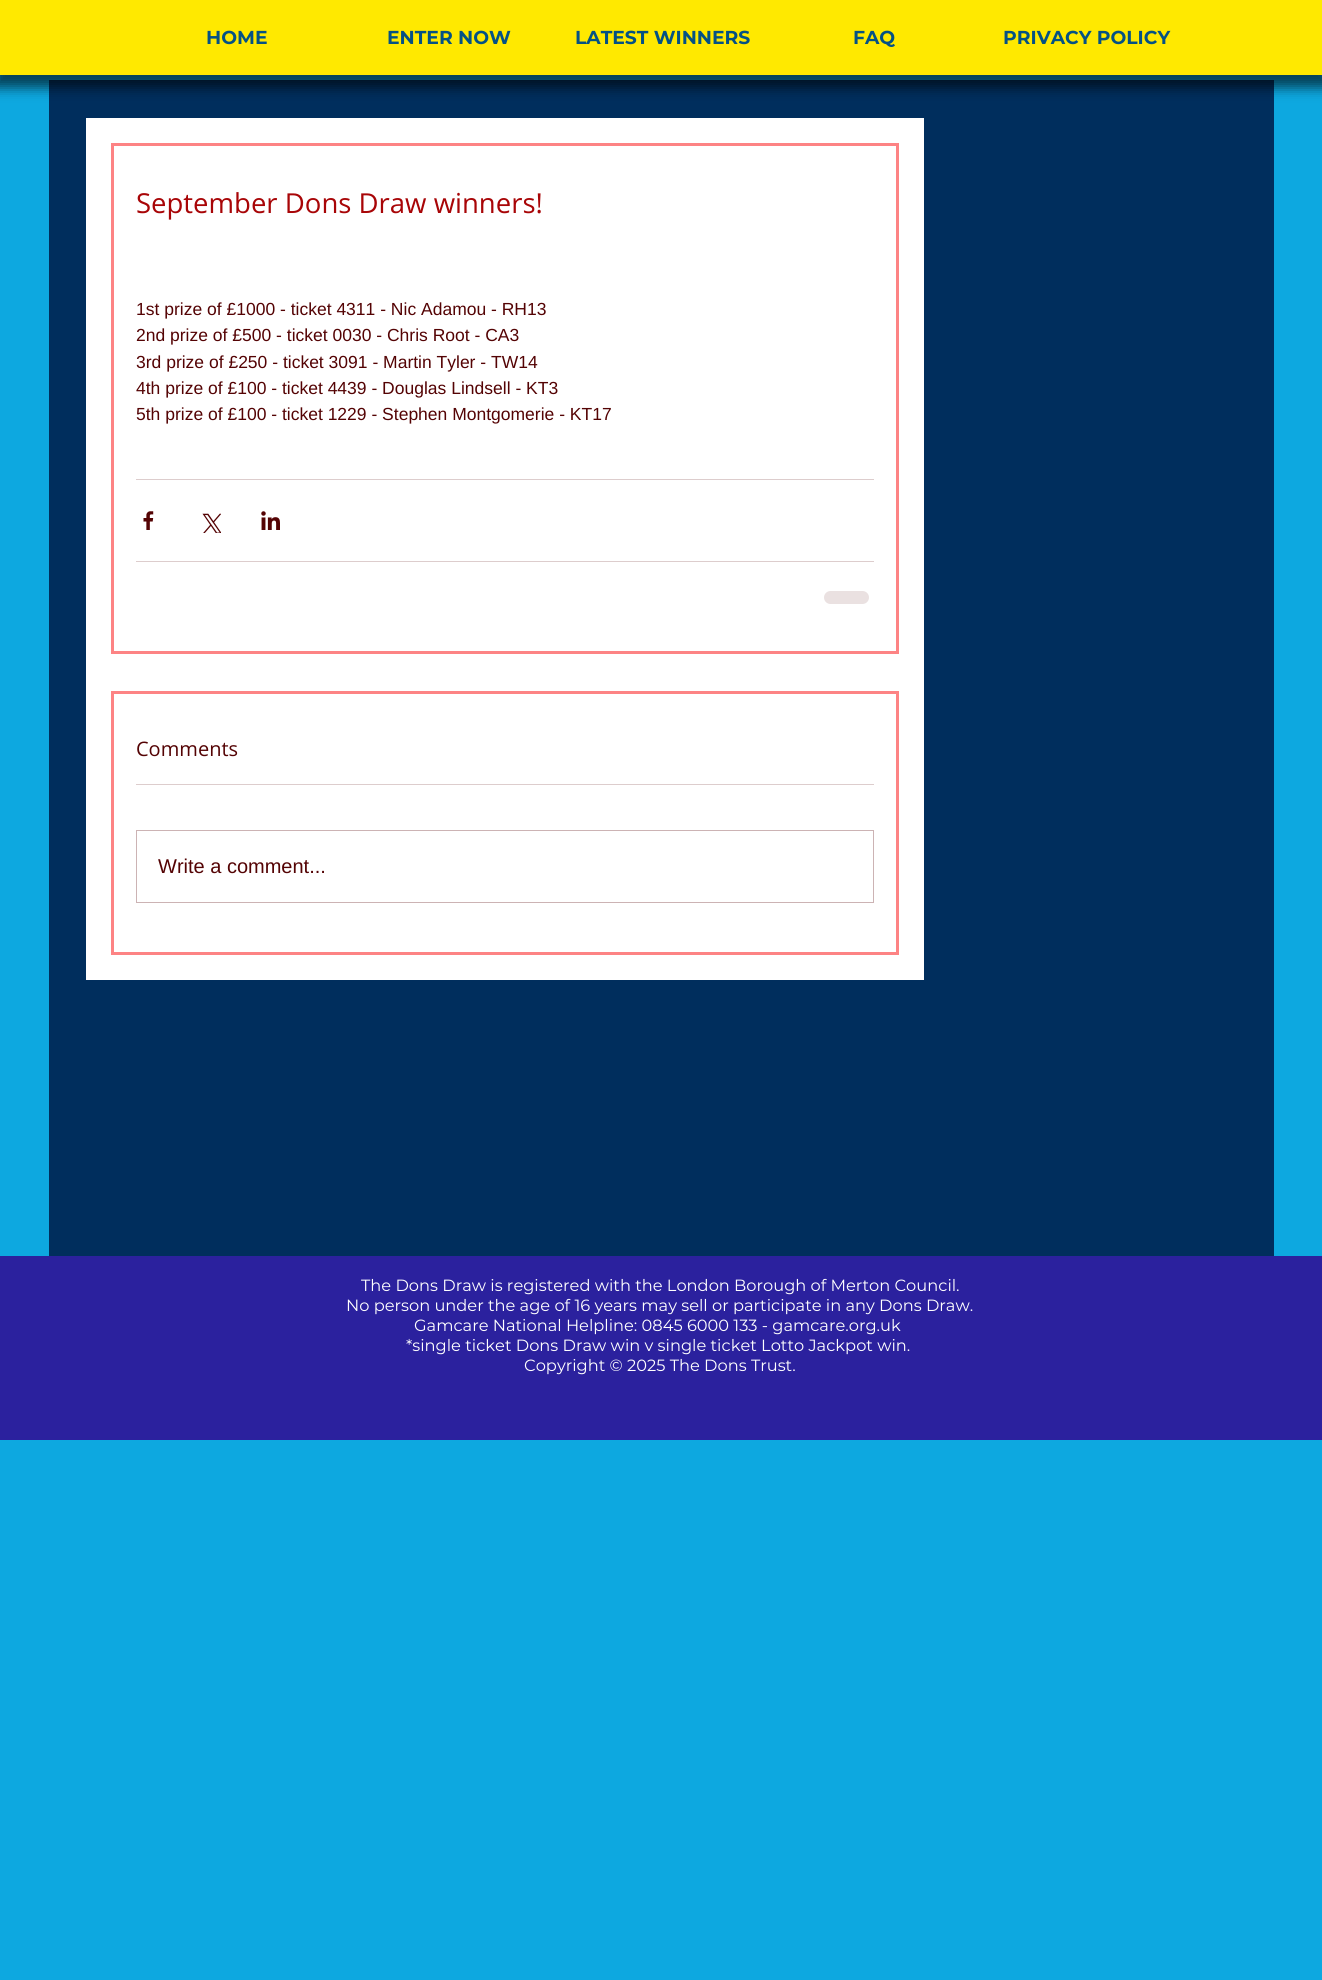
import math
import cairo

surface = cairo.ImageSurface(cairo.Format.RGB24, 1322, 1980)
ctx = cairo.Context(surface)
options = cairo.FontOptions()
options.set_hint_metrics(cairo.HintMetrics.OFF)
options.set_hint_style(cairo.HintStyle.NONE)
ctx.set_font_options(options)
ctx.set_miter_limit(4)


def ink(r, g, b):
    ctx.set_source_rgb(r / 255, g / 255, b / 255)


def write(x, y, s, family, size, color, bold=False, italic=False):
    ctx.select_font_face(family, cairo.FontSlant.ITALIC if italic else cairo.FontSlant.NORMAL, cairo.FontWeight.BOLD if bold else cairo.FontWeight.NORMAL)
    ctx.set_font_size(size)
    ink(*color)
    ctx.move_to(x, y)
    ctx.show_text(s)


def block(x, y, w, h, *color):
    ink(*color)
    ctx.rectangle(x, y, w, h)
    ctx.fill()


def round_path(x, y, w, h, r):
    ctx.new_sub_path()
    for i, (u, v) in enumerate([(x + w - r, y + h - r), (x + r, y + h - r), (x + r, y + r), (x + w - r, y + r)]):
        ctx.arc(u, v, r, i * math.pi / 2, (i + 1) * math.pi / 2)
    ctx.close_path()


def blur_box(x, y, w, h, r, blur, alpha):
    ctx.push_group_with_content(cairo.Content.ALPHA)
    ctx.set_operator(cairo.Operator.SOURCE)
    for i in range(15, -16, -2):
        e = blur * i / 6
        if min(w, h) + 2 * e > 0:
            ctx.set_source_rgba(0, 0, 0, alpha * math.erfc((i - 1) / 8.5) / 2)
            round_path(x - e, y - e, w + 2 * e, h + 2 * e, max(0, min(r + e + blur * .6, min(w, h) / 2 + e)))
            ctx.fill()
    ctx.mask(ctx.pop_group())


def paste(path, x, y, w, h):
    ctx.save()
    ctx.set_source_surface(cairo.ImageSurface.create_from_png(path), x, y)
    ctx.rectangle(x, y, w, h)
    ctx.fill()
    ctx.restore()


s1 = dict(family="Montserrat", size=18.75, color=(4, 81, 132), bold=True)
s2 = dict(family="Open Sans", size=27.5, color=(168, 5, 7))
s3 = dict(family="Liberation Sans", size=17.5, color=(84, 3, 4))
s4 = dict(family="Open Sans", size=20, color=(84, 3, 4))
s5 = dict(family="Liberation Sans", size=20, color=(84, 3, 4))
s6 = dict(family="Montserrat", size=16.25, color=(255, 255, 255))

ink(13, 168, 224)
ctx.paint()
block(49, 80, 1225, 1176, 0, 46, 93)
ink(0, 0, 0)
blur_box(-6, 0, 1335, 88, 0, 6, 0.6)
block(0, 0, 1322, 75, 255, 233, 0)
write(206, 44, "HOME", **s1)
write(387, 44, "ENTER NOW", **s1)
write(575, 44, "LATEST WINNERS", **s1)
write(853, 44, "FAQ", **s1)
write(1003, 44, "PRIVACY POLICY", **s1)
block(86, 118, 838, 862, 255, 255, 255)
ctx.rectangle(112.5, 144.5, 785, 508)
ink(253, 131, 132)
ctx.set_line_width(3)
ctx.stroke()
write(136, 213, "September Dons Draw winners!", **s2)
write(136, 315, "1st prize of £1000 - ticket 4311 - Nic Adamou - RH13", **s3)
write(136, 341, "2nd prize of £500 - ticket 0030 - Chris Root - CA3", **s3)
write(136, 368, "3rd prize of £250 - ticket 3091 - Martin Tyler - TW14", **s3)
write(136, 394, "4th prize of £100 - ticket 4439 - Douglas Lindsell - KT3", **s3)
write(136, 420, "5th prize of £100 - ticket 1229 - Stephen Montgomerie - KT17", **s3)
block(136, 479, 738, 1, 221, 205, 205)
paste("pic1.png", 143, 511, 11, 19)
paste("pic2.png", 202, 513, 19, 20)
paste("pic3.png", 261, 511, 19, 19)
block(136, 561, 738, 1, 221, 205, 205)
ink(234, 225, 225)
round_path(824, 591, 45, 13, 6.5)
ctx.fill()
ctx.rectangle(112.5, 692.5, 785, 261)
ink(253, 131, 132)
ctx.stroke()
write(136, 756, "Comments", **s4)
block(136, 784, 738, 1, 221, 205, 205)
ctx.rectangle(136.5, 830.5, 737, 72)
ink(204, 179, 180)
ctx.set_line_width(1)
ctx.stroke()
write(158, 873, "Write a comment...", **s5)
block(0, 1256, 1322, 184, 43, 33, 158)
write(361, 1291, "The Dons Draw is registered with the London Borough of Merton Council.", **s6)
write(346, 1311, "No person under the age of 16 years may sell or participate in any Dons Draw.", **s6)
write(414, 1331, "Gamcare National Helpline: 0845 6000 133 - gamcare.org.uk", **s6)
write(406, 1351, "*single ticket Dons Draw win v single ticket Lotto Jackpot win.", **s6)
write(524, 1371, "Copyright © 2025 The Dons Trust.", **s6)
surface.write_to_png("screenshot.png")
